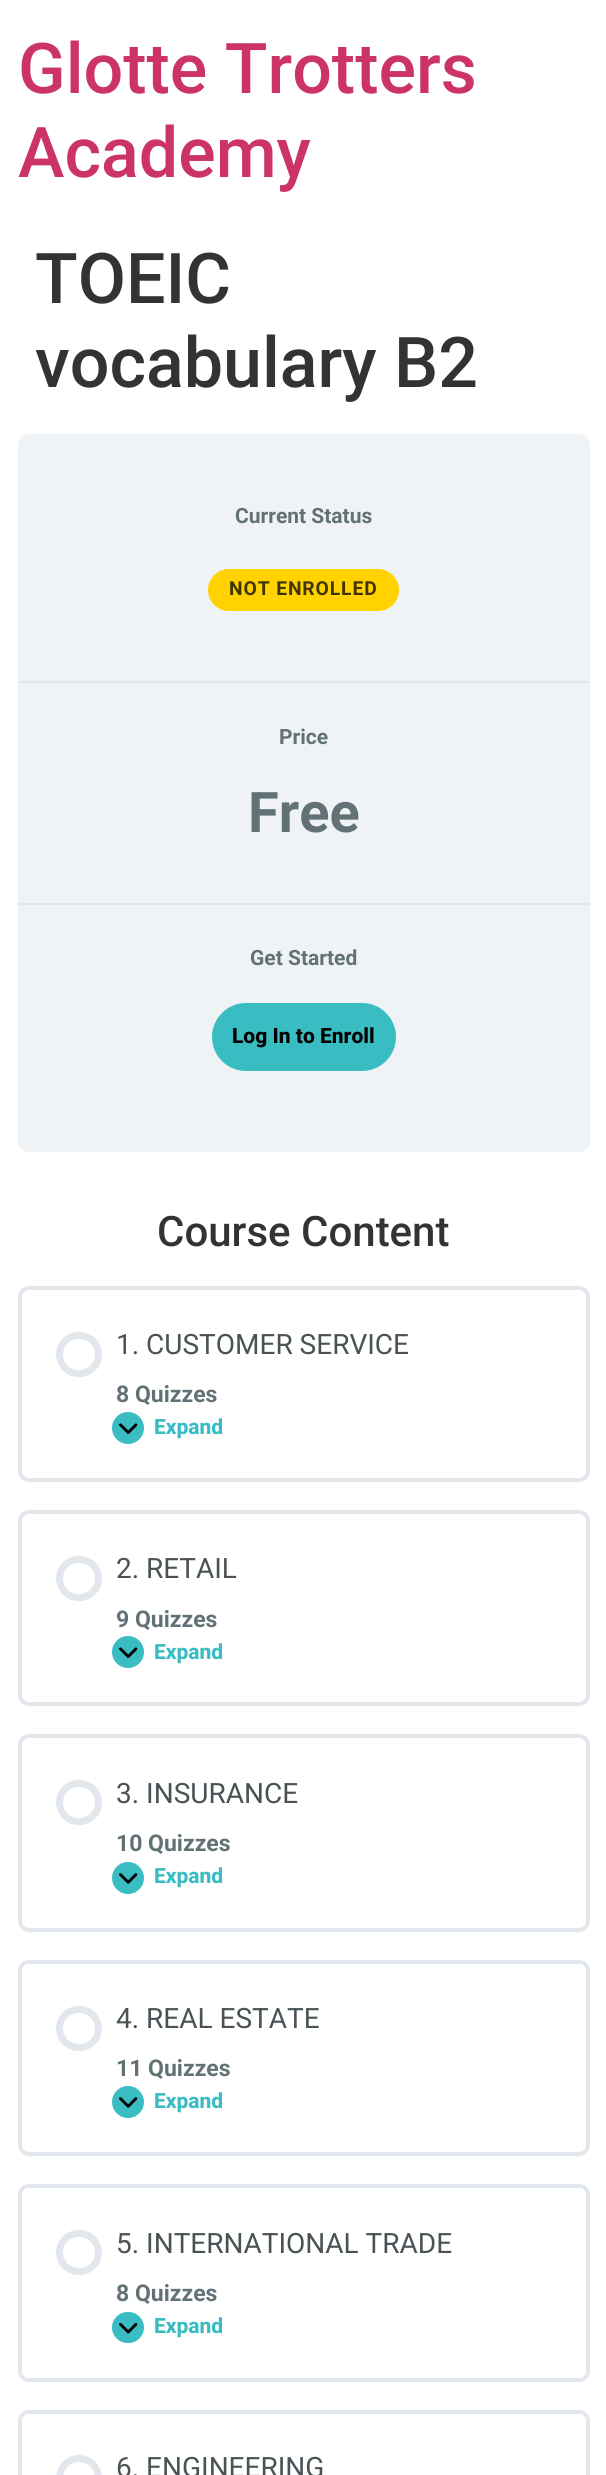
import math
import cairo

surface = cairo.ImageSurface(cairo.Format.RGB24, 606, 2475)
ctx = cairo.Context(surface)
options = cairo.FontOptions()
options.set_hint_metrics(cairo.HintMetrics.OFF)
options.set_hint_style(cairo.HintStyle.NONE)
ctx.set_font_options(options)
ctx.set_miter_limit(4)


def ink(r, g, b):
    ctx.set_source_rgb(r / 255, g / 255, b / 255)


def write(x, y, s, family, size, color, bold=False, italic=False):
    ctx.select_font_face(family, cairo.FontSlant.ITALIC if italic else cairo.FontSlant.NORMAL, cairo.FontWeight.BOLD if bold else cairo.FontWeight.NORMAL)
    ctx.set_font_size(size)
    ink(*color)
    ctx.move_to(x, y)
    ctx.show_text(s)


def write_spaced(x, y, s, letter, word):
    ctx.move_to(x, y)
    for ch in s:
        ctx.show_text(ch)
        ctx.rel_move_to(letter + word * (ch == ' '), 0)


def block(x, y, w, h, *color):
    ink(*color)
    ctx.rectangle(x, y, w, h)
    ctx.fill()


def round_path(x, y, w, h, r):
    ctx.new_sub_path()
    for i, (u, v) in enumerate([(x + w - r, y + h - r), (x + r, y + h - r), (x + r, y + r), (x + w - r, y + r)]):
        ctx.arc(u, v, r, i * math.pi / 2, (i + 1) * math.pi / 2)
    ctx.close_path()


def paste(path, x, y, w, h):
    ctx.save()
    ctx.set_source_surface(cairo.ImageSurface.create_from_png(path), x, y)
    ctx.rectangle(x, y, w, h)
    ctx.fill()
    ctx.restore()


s1 = dict(family="Roboto Medium", size=70, color=(204, 51, 102))
s2 = dict(family="Roboto Medium", size=70, color=(51, 51, 51))
s3 = dict(family="Roboto", size=21, color=(97, 113, 117), bold=True)
s4 = dict(family="Roboto", size=56, color=(97, 113, 117), bold=True)
s5 = dict(family="Roboto ExtraBold", size=21, color=(0, 0, 0))
s6 = dict(family="Roboto Medium", size=42, color=(51, 51, 51))
s7 = dict(family="Roboto", size=28, color=(73, 82, 85))
s8 = dict(family="Roboto", size=23, color=(97, 113, 117), bold=True)
s9 = dict(family="Roboto ExtraBold", size=21, color=(57, 189, 194))

ink(255, 255, 255)
ctx.paint()
write(18, 93, "Glotte Trotters", **s1)
write(18, 177, "Academy", **s1)
write(35, 303, "TOEIC", **s2)
write(35, 387, "vocabulary B2", **s2)
ink(240, 243, 246)
round_path(18, 434, 572, 718, 11)
ctx.fill()
block(18, 681, 572, 2, 226, 231, 237)
write(235, 523, "Current Status", **s3)
ink(255, 210, 0)
round_path(208, 569, 191, 42, 21)
ctx.fill()
ctx.set_font_size(19.25)
ink(64, 53, 0)
write_spaced(229, 595, "NOT ENROLLED", 0.9, 0)
block(18, 903, 572, 2, 226, 231, 237)
write(279, 744, "Price", **s3)
write(248, 832, "Free", **s4)
write(250, 965, "Get Started", **s3)
ink(57, 189, 194)
round_path(212, 1003, 184, 68, 34)
ctx.fill()
write(232, 1043, "Log In to Enroll", **s5)
write(157, 1246, "Course Content", **s6)
round_path(20, 1288, 568, 192, 9)
ink(226, 231, 237)
ctx.set_line_width(4)
ctx.stroke()
round_path(59.5, 1335.5, 39, 38, 19)
ctx.set_line_width(7)
ctx.stroke()
write(116, 1354, "1. CUSTOMER SERVICE", **s7)
write(116, 1402, "8 Quizzes", **s8)
ink(57, 189, 194)
ctx.new_path()
ctx.arc(128, 1428, 16, 0, 2 * math.pi)
ctx.fill()
paste("pic1.png", 119, 1423, 19, 11)
write(154, 1434, "Expand", **s9)
round_path(20, 1512, 568, 192, 9)
ink(226, 231, 237)
ctx.set_line_width(4)
ctx.stroke()
round_path(59.5, 1559.5, 39, 38, 19)
ctx.set_line_width(7)
ctx.stroke()
write(116, 1578, "2. RETAIL", **s7)
write(116, 1627, "9 Quizzes", **s8)
ink(57, 189, 194)
ctx.new_path()
ctx.arc(128, 1652, 16, 0, 2 * math.pi)
ctx.fill()
paste("pic1.png", 119, 1647, 19, 11)
write(154, 1659, "Expand", **s9)
round_path(20, 1736, 568, 194, 9)
ink(226, 231, 237)
ctx.set_line_width(4)
ctx.stroke()
round_path(59.5, 1783.5, 39, 38, 19)
ctx.set_line_width(7)
ctx.stroke()
write(116, 1803, "3. INSURANCE", **s7)
write(116, 1851, "10 Quizzes", **s8)
ink(57, 189, 194)
ctx.new_path()
ctx.arc(128, 1878, 16, 0, 2 * math.pi)
ctx.fill()
paste("pic2.png", 119, 1873, 19, 11)
write(154, 1883, "Expand", **s9)
round_path(20, 1962, 568, 192, 9)
ink(226, 231, 237)
ctx.set_line_width(4)
ctx.stroke()
round_path(59.5, 2009.5, 39, 38, 19)
ctx.set_line_width(7)
ctx.stroke()
write(116, 2028, "4. REAL ESTATE", **s7)
write(116, 2076, "11 Quizzes", **s8)
ink(57, 189, 194)
ctx.new_path()
ctx.arc(128, 2102, 16, 0, 2 * math.pi)
ctx.fill()
paste("pic2.png", 119, 2097, 19, 11)
write(154, 2108, "Expand", **s9)
round_path(20, 2186, 568, 194, 9)
ink(226, 231, 237)
ctx.set_line_width(4)
ctx.stroke()
round_path(59.5, 2233.5, 39, 38, 19)
ctx.set_line_width(7)
ctx.stroke()
write(116, 2253, "5. INTERNATIONAL TRADE", **s7)
write(116, 2301, "8 Quizzes", **s8)
ink(57, 189, 194)
round_path(112, 2312, 32, 31, 15.5)
ctx.fill()
paste("pic3.png", 119, 2322, 19, 12)
write(154, 2333, "Expand", **s9)
round_path(20, 2412, 568, 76, 9)
ink(226, 231, 237)
ctx.set_line_width(4)
ctx.stroke()
ctx.arc(79, 2478, 19.5, 0, 2 * math.pi)
ctx.set_line_width(7)
ctx.stroke()
write(116, 2477, "6. ENGINEERING", **s7)
surface.write_to_png("screenshot.png")
